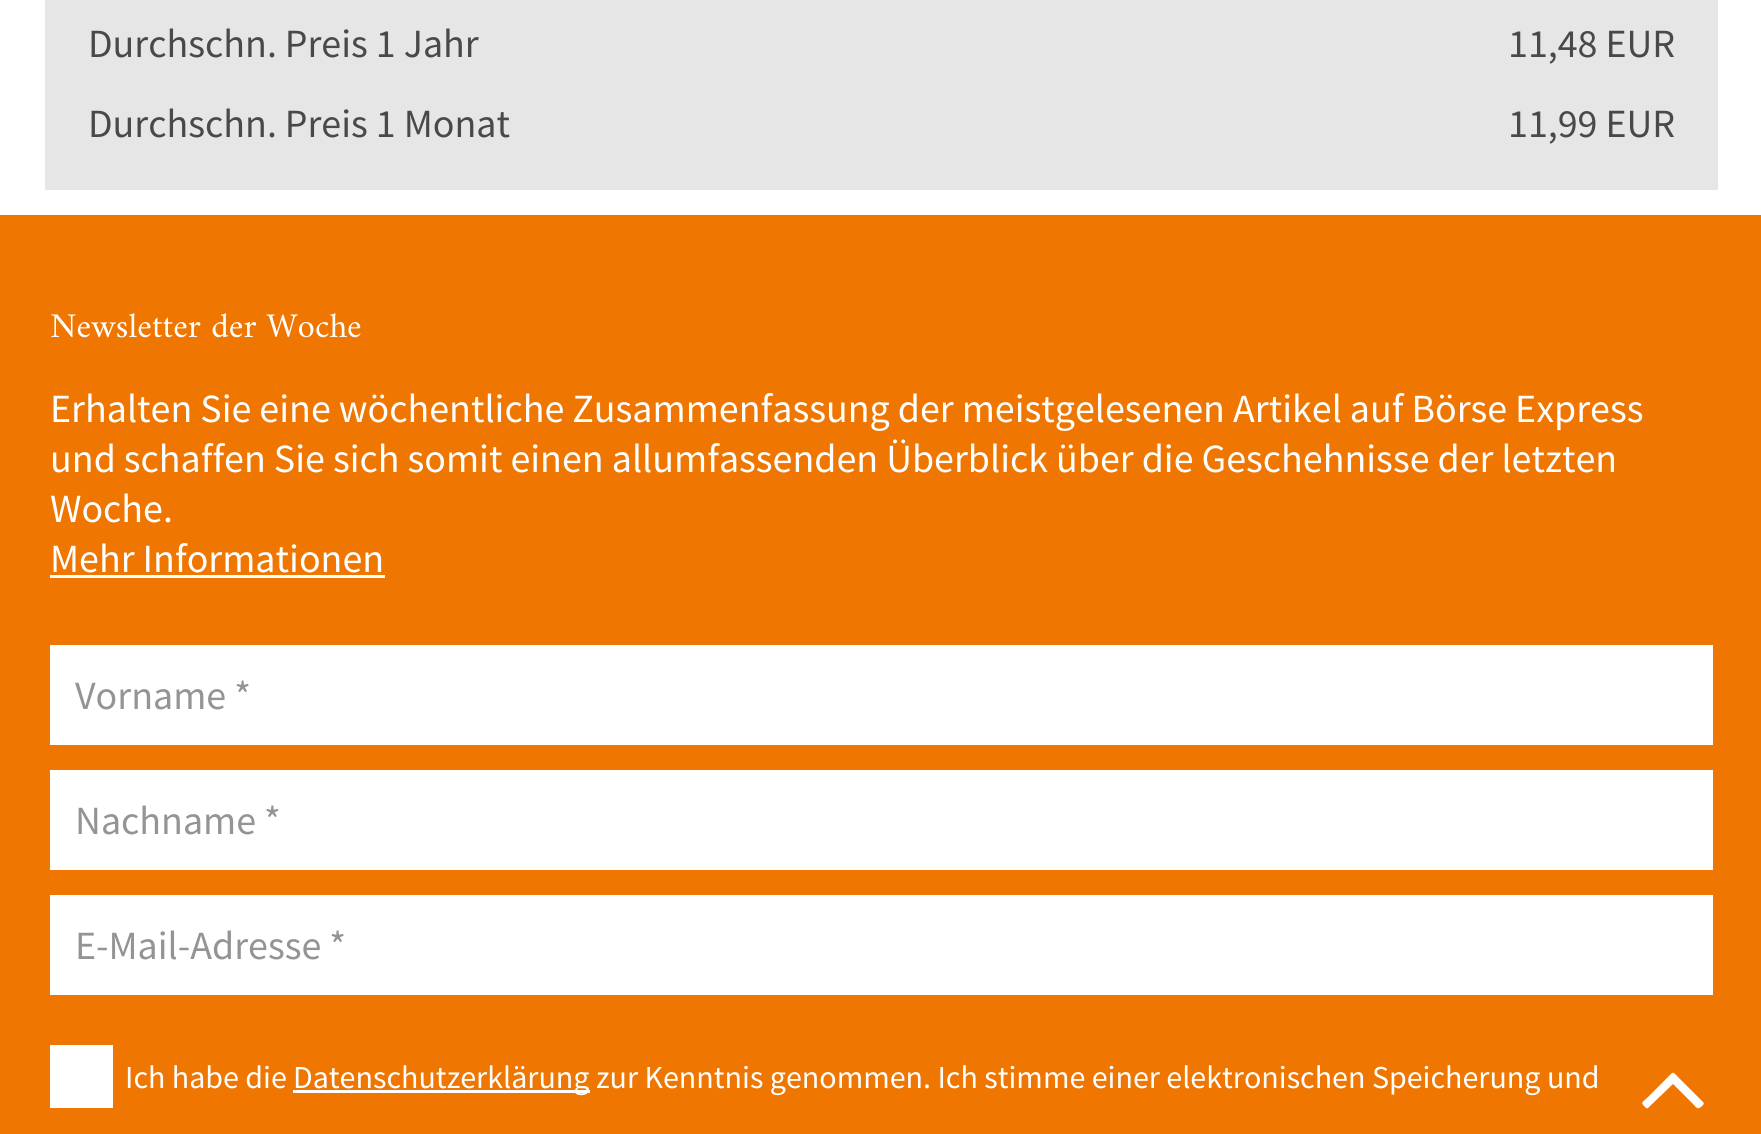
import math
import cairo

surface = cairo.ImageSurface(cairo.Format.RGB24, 1761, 1134)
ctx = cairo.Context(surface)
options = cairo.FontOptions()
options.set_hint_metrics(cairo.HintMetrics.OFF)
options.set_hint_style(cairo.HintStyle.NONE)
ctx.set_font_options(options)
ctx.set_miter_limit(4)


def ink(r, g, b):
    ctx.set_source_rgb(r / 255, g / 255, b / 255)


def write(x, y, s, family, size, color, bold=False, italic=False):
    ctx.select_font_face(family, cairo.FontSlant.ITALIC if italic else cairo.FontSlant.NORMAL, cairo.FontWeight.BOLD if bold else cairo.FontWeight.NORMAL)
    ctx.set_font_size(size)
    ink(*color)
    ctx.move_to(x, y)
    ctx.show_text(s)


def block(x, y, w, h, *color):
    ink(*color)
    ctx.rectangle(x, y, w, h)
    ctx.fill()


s1 = dict(family="Source Sans Pro", size=40, color=(74, 73, 73))
s2 = dict(family="Amiri", size=35, color=(255, 255, 255))
s3 = dict(family="Source Sans Pro", size=40, color=(255, 255, 255))
s4 = dict(family="Source Sans Pro", size=40, color=(148, 148, 148))
s5 = dict(family="Source Sans Pro", size=32, color=(255, 255, 255))

ink(255, 255, 255)
ctx.paint()
block(45, 0, 1673, 190, 230, 230, 230)
write(88, 57, "Durchschn. Preis 1 Jahr", **s1)
write(1508, 57, "11,48 EUR", **s1)
write(88, 137, "Durchschn. Preis 1 Monat", **s1)
write(1508, 137, "11,99 EUR", **s1)
block(0, 215, 1761, 919, 238, 118, 1)
write(50, 337, "Newsletter der Woche", **s2)
write(50, 422, "Erhalten Sie eine wöchentliche Zusammenfassung der meistgelesenen Artikel auf Börse Express", **s3)
write(50, 472, "und schaffen Sie sich somit einen allumfassenden Überblick über die Geschehnisse der letzten", **s3)
write(50, 522, "Woche.", **s3)
write(50, 572, "Mehr Informationen", **s3)
block(50, 575, 335, 3, 255, 255, 255)
block(50, 645, 1663, 100, 255, 255, 255)
write(75, 709, "Vorname *", **s4)
block(50, 770, 1663, 100, 255, 255, 255)
write(75, 834, "Nachname *", **s4)
block(50, 895, 1663, 100, 255, 255, 255)
write(75, 959, "E-Mail-Adresse *", **s4)
block(50, 1045, 63, 63, 255, 255, 255)
write(125, 1088, "Ich habe die", **s5)
block(293, 1090, 297, 3, 255, 255, 255)
write(293, 1088, "Datenschutzerklärung zur Kenntnis genommen. Ich stimme einer elektronischen Speicherung und", **s5)
ctx.new_path()
ctx.move_to(1703, 1102)
ctx.curve_to(1705, 1104, 1702, 1106, 1701, 1107)
ctx.curve_to(1697, 1110, 1696, 1107, 1693, 1104)
ctx.line_to(1673, 1084)
ctx.line_to(1648, 1108)
ctx.curve_to(1647, 1109, 1646, 1108, 1645, 1107)
ctx.curve_to(1640, 1102, 1642, 1103, 1648, 1097)
ctx.line_to(1667, 1078)
ctx.curve_to(1674, 1071, 1672, 1071, 1679, 1078)
ctx.close_path()
ctx.fill()
surface.write_to_png("screenshot.png")
